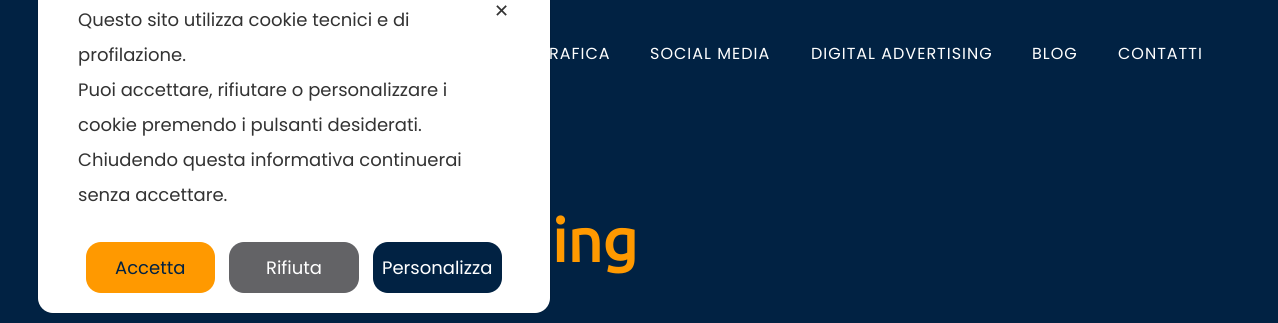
import math
import cairo

surface = cairo.ImageSurface(cairo.Format.RGB24, 1278, 323)
ctx = cairo.Context(surface)
options = cairo.FontOptions()
options.set_hint_metrics(cairo.HintMetrics.OFF)
options.set_hint_style(cairo.HintStyle.NONE)
ctx.set_font_options(options)
ctx.set_miter_limit(4)


def ink(r, g, b):
    ctx.set_source_rgb(r / 255, g / 255, b / 255)


def write(x, y, s, family, size, color, bold=False, italic=False):
    ctx.select_font_face(family, cairo.FontSlant.ITALIC if italic else cairo.FontSlant.NORMAL, cairo.FontWeight.BOLD if bold else cairo.FontWeight.NORMAL)
    ctx.set_font_size(size)
    ink(*color)
    ctx.move_to(x, y)
    ctx.show_text(s)


def write_spaced(x, y, s, letter, word):
    ctx.move_to(x, y)
    for ch in s:
        ctx.show_text(ch)
        ctx.rel_move_to(letter + word * (ch == ' '), 0)


def round_path(x, y, w, h, r):
    ctx.new_sub_path()
    for i, (u, v) in enumerate([(x + w - r, y + h - r), (x + r, y + h - r), (x + r, y + r), (x + w - r, y + r)]):
        ctx.arc(u, v, r, i * math.pi / 2, (i + 1) * math.pi / 2)
    ctx.close_path()


s1 = dict(family="DejaVu Sans", size=18, color=(51, 51, 51))
s2 = dict(family="Poppins", size=18, color=(51, 51, 51))
s3 = dict(family="Poppins", size=18, color=(1, 34, 67))
s4 = dict(family="Poppins", size=18, color=(255, 255, 255))
s5 = dict(family="Ubuntu", size=61, color=(255, 153, 0), bold=True)

ink(1, 34, 67)
ctx.paint()
ctx.select_font_face("Poppins")
ctx.set_font_size(16)
ink(255, 255, 255)
write_spaced(549, 59, "RAFICA", 1, 0)
round_path(37.5, -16.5, 513, 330, 15.5)
ctx.set_source_rgba(0, 0, 0, 0.08)
ctx.set_line_width(1)
ctx.stroke()
ink(255, 255, 255)
round_path(38, -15, 512, 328, 15)
ctx.fill()
write(494, 17, "✕", **s1)
write(78, 26, "Questo sito utilizza cookie tecnici e di", **s2)
write(78, 61, "profilazione.", **s2)
write(78, 96, "Puoi accettare, rifiutare o personalizzare i", **s2)
write(78, 131, "cookie premendo i pulsanti desiderati.", **s2)
write(78, 166, "Chiudendo questa informativa continuerai", **s2)
write(78, 201, "senza accettare.", **s2)
ink(255, 153, 0)
round_path(86, 242, 129, 51, 15)
ctx.fill()
write(115, 274, "Accetta", **s3)
ink(99, 99, 102)
round_path(229, 242, 130, 51, 15)
ctx.fill()
write(266, 274, "Rifiuta", **s4)
ink(1, 34, 67)
round_path(373, 242, 129, 51, 15)
ctx.fill()
write(382, 274, "Personalizza", **s4)
ctx.set_font_size(16)
write_spaced(650, 59, "SOCIAL MEDIA", 1, 0)
write_spaced(811, 59, "DIGITAL ADVERTISING", 1, 0)
write_spaced(1032, 59, "BLOG", 1, 0)
write_spaced(1118, 59, "CONTATTI", 1, 0)
write(552, 262, "ing", **s5)
surface.write_to_png("screenshot.png")
